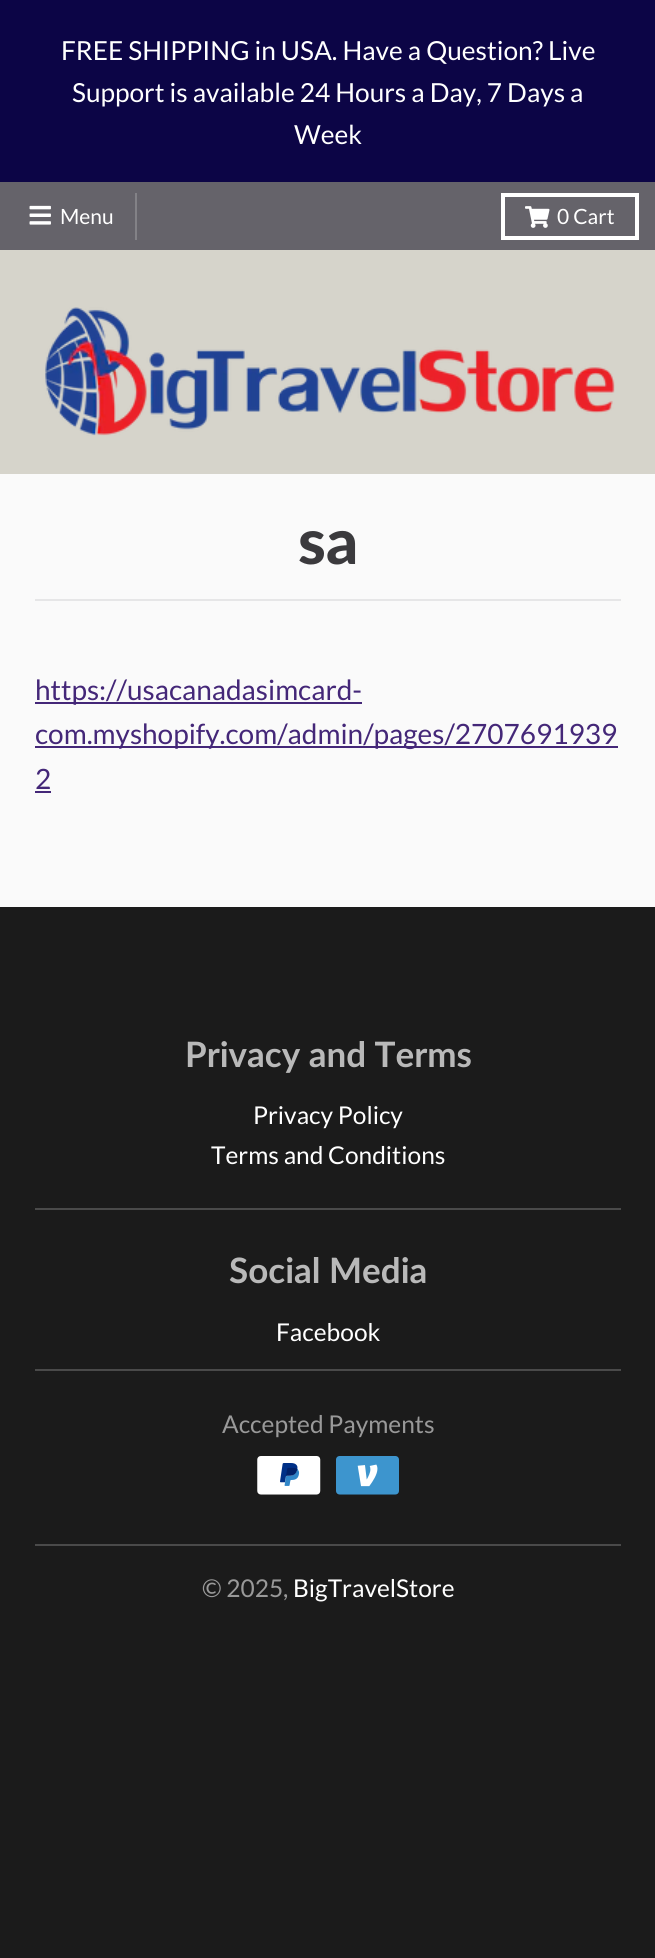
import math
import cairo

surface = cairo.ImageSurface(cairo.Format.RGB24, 655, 1958)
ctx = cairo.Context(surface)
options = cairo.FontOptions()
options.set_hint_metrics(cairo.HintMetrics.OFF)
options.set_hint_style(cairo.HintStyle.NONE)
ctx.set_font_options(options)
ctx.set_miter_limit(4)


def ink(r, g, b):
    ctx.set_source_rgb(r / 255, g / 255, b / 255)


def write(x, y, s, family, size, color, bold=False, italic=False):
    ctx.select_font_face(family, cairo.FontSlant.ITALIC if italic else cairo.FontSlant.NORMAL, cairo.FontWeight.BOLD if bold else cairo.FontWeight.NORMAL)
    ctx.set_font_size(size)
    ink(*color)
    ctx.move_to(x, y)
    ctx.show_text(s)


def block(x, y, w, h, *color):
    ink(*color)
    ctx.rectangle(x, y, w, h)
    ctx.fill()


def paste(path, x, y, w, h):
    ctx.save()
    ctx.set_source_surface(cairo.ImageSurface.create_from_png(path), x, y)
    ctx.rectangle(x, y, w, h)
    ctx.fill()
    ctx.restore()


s1 = dict(family="Lato", size=26.25, color=(255, 255, 255))
s2 = dict(family="Lato", size=21, color=(255, 255, 255))
s3 = dict(family="Lato Black", size=63, color=(59, 58, 61))
s4 = dict(family="Lato", size=28, color=(68, 39, 120))
s5 = dict(family="Lato", size=35, color=(185, 185, 185), bold=True)
s6 = dict(family="Lato", size=24.5, color=(255, 255, 255))
s7 = dict(family="Lato", size=24.5, color=(153, 153, 153))

ink(27, 27, 27)
ctx.paint()
block(0, 474, 655, 433, 250, 250, 250)
block(0, 0, 655, 182, 12, 5, 70)
write(61, 60, "FREE SHIPPING in USA. Have a Question? Live", **s1)
write(72, 102, "Support is available 24 Hours a Day, 7 Days a", **s1)
write(294, 144, "Week", **s1)
block(0, 182, 655, 68, 101, 99, 106)
block(135, 193, 2, 47, 131, 130, 135)
paste("pic1.png", 29, 205, 22, 20)
write(60, 224, "Menu", **s2)
ctx.rectangle(503, 195, 134, 43)
ctx.set_line_width(4)
ctx.stroke()
paste("pic2.png", 525, 206, 25, 22)
write(557, 224, "0 Cart", **s2)
block(0, 250, 655, 224, 214, 212, 203)
paste("pic3.png", 45, 307, 570, 129)
block(35, 599, 586, 2, 230, 230, 231)
write(298, 564, "sa", **s3)
block(35, 702, 327, 2, 68, 39, 120)
write(35, 700, "https://usacanadasimcard-", **s4)
block(35, 746, 583, 2, 68, 39, 120)
write(35, 744, "com.myshopify.com/admin/pages/2707691939", **s4)
write(35, 789, "2", **s4)
block(35, 791, 16, 2, 68, 39, 120)
write(185, 1067, "Privacy and Terms", **s5)
block(35, 1208, 586, 2, 74, 74, 74)
write(253, 1124, "Privacy Policy", **s6)
write(211, 1164, "Terms and Conditions", **s6)
write(229, 1283, "Social Media", **s5)
write(276, 1341, "Facebook", **s6)
block(35, 1369, 586, 2, 74, 74, 74)
write(222, 1433, "Accepted Payments", **s7)
block(35, 1544, 586, 2, 74, 74, 74)
paste("pic4.png", 257, 1456, 64, 39)
paste("pic5.png", 336, 1456, 63, 39)
write(202, 1597, "© 2025,", **s7)
write(293, 1597, "BigTravelStore", **s6)
surface.write_to_png("screenshot.png")
